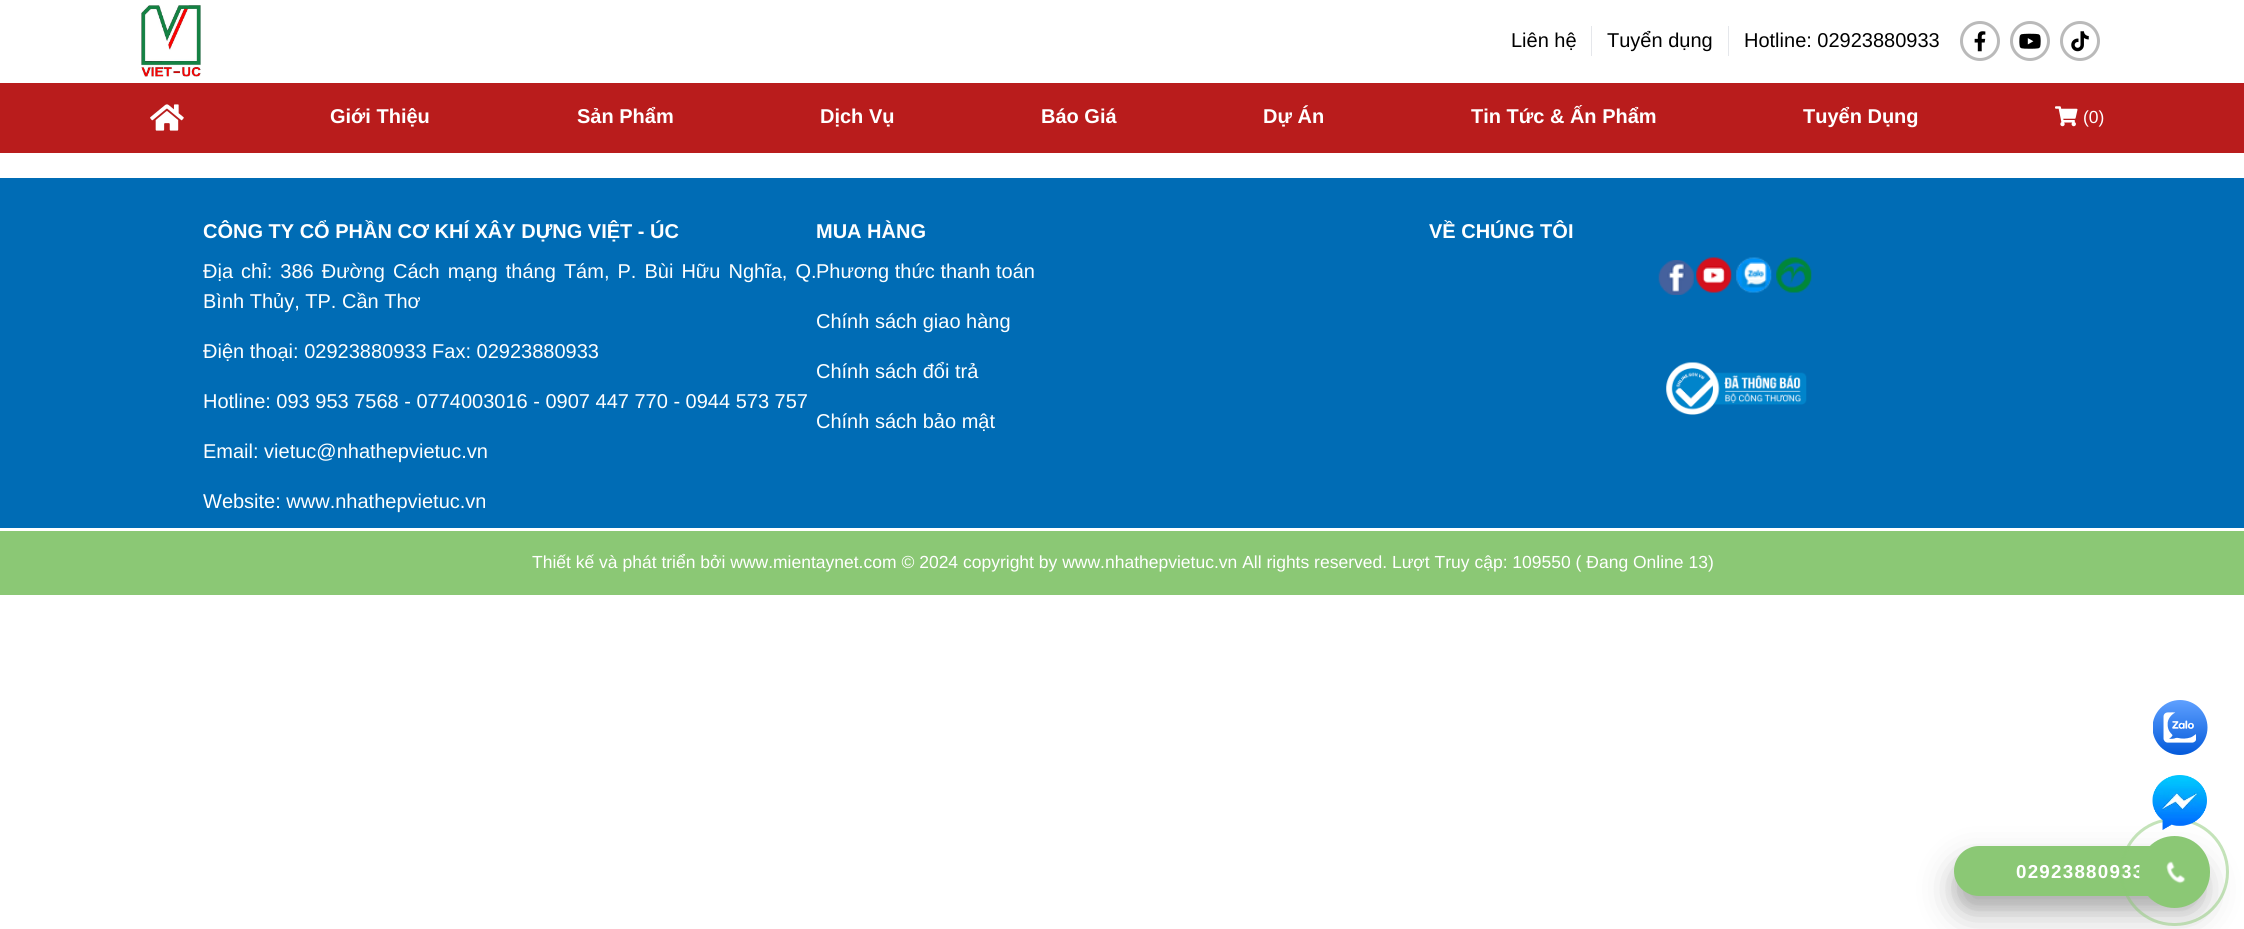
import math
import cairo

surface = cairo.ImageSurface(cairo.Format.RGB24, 2244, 929)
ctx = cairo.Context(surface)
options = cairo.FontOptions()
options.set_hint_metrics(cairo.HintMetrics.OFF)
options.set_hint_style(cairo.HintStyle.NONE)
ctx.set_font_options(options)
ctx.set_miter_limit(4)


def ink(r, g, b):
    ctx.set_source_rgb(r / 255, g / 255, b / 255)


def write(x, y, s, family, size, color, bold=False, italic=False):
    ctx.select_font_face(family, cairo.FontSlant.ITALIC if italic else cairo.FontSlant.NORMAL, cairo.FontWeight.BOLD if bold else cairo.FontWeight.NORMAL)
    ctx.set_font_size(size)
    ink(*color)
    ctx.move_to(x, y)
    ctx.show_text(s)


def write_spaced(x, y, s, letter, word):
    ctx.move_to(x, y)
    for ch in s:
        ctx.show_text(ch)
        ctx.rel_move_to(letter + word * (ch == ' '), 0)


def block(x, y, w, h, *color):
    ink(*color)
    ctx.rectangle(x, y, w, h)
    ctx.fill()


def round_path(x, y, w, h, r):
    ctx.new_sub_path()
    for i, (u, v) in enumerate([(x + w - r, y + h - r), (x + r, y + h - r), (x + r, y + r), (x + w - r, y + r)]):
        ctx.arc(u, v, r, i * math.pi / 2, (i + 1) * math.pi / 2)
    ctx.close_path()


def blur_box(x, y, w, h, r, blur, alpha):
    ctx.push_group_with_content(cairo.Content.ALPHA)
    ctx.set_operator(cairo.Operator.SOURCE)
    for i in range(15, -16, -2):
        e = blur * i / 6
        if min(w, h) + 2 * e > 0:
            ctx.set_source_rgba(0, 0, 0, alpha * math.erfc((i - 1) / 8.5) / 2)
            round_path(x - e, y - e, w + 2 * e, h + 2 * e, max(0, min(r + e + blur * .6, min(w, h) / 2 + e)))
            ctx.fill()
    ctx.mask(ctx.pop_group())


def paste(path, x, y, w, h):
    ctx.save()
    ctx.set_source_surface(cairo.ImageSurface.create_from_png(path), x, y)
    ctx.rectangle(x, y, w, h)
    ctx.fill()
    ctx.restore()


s1 = dict(family="Liberation Sans", size=20, color=(0, 0, 0))
s2 = dict(family="Liberation Sans", size=20, color=(255, 255, 255), bold=True)
s3 = dict(family="Liberation Sans", size=17.5, color=(255, 255, 255))
s4 = dict(family="Liberation Sans", size=20, color=(255, 255, 255))

ink(255, 255, 255)
ctx.paint()
paste("pic1.png", 141, 5, 60, 72)
block(1591, 26, 1, 30, 229, 231, 235)
write(1511, 47, "Liên hệ", **s1)
block(1728, 26, 1, 30, 229, 231, 235)
write(1607, 47, "Tuyển dụng", **s1)
write(1744, 47, "Hotline: 02923880933", **s1)
ctx.new_path()
ctx.arc(1980, 41, 18.5, 0, 2 * math.pi)
ink(186, 186, 186)
ctx.set_line_width(3)
ctx.stroke()
paste("pic2.png", 1974, 31, 12, 21)
ctx.arc(2030, 41, 18.5, 0, 2 * math.pi)
ctx.stroke()
paste("pic3.png", 2019, 33, 22, 16)
ctx.arc(2080, 41, 18.5, 0, 2 * math.pi)
ctx.stroke()
paste("pic4.png", 2071, 31, 18, 21)
block(0, 83, 2244, 70, 185, 28, 28)
paste("pic5.png", 150, 104, 34, 27)
write(330, 123, "Giới Thiệu", **s2)
write(577, 123, "Sản Phẩm", **s2)
write(820, 123, "Dịch Vụ", **s2)
write(1041, 123, "Báo Giá", **s2)
write(1263, 123, "Dự Án", **s2)
write(1471, 123, "Tin Tức & Ấn Phẩm", **s2)
write(1803, 123, "Tuyển Dụng", **s2)
paste("pic6.png", 2055, 106, 23, 21)
write(2083, 123, "(0)", **s3)
block(0, 178, 2244, 350, 0, 108, 181)
write(203, 238, "CÔNG TY CỔ PHẦN CƠ KHÍ XÂY DỰNG VIỆT - ÚC", **s2)
ctx.select_font_face("Liberation Sans")
write_spaced(203, 278, "Địa chỉ: 386 Đường Cách mạng tháng Tám, P. Bùi Hữu Nghĩa, Q.", 0, 2.5)
write(203, 308, "Bình Thủy, TP. Cần Thơ", **s4)
write(203, 358, "Điện thoại: 02923880933 Fax: 02923880933", **s4)
write(203, 408, "Hotline: 093 953 7568 - 0774003016 - 0907 447 770 - 0944 573 757", **s4)
write(203, 458, "Email: vietuc@nhathepvietuc.vn", **s4)
write(203, 508, "Website: www.nhathepvietuc.vn", **s4)
write(816, 238, "MUA HÀNG", **s2)
write(816, 278, "Phương thức thanh toán", **s4)
write(816, 328, "Chính sách giao hàng", **s4)
write(816, 378, "Chính sách đổi trả", **s4)
write(816, 428, "Chính sách bảo mật", **s4)
write(1429, 238, "VỀ CHÚNG TÔI", **s2)
paste("pic7.png", 1658, 260, 36, 35)
paste("pic8.png", 1696, 257, 36, 36)
paste("pic9.png", 1736, 257, 36, 36)
paste("pic10.png", 1776, 257, 36, 36)
paste("pic11.png", 1666, 362, 141, 53)
block(0, 531, 2244, 64, 139, 200, 117)
write(532, 568, "Thiết kế và phát triển bởi www.mientaynet.com © 2024 copyright by www.nhathepvietuc.vn All rights reserved. Lượt Truy cập: 109550 ( Đang Online 13)", **s3)
paste("pic12.png", 2153, 700, 55, 55)
ink(0, 0, 0)
blur_box(1954, 864, 250, 50, 25, 17.5, 0.25)
blur_box(1954, 859, 250, 50, 25, 6, 0.1)
ink(139, 200, 117)
round_path(1954, 846, 250, 50, 25)
ctx.fill()
ctx.select_font_face("Liberation Sans", cairo.FontSlant.NORMAL, cairo.FontWeight.BOLD)
ctx.set_font_size(18.75)
ink(255, 255, 255)
write_spaced(2016, 878, "02923880933", 1.25, 0)
round_path(2121.5, 819.5, 106, 105, 52.5)
ctx.set_source_rgba(0.545, 0.784, 0.459, 0.5)
ctx.stroke()
paste("pic13.png", 2152, 775, 55, 55)
ink(139, 200, 117)
round_path(2139, 836, 71, 72, 35.5)
ctx.fill()
paste("pic14.png", 2166, 861, 20, 23)
surface.write_to_png("screenshot.png")
